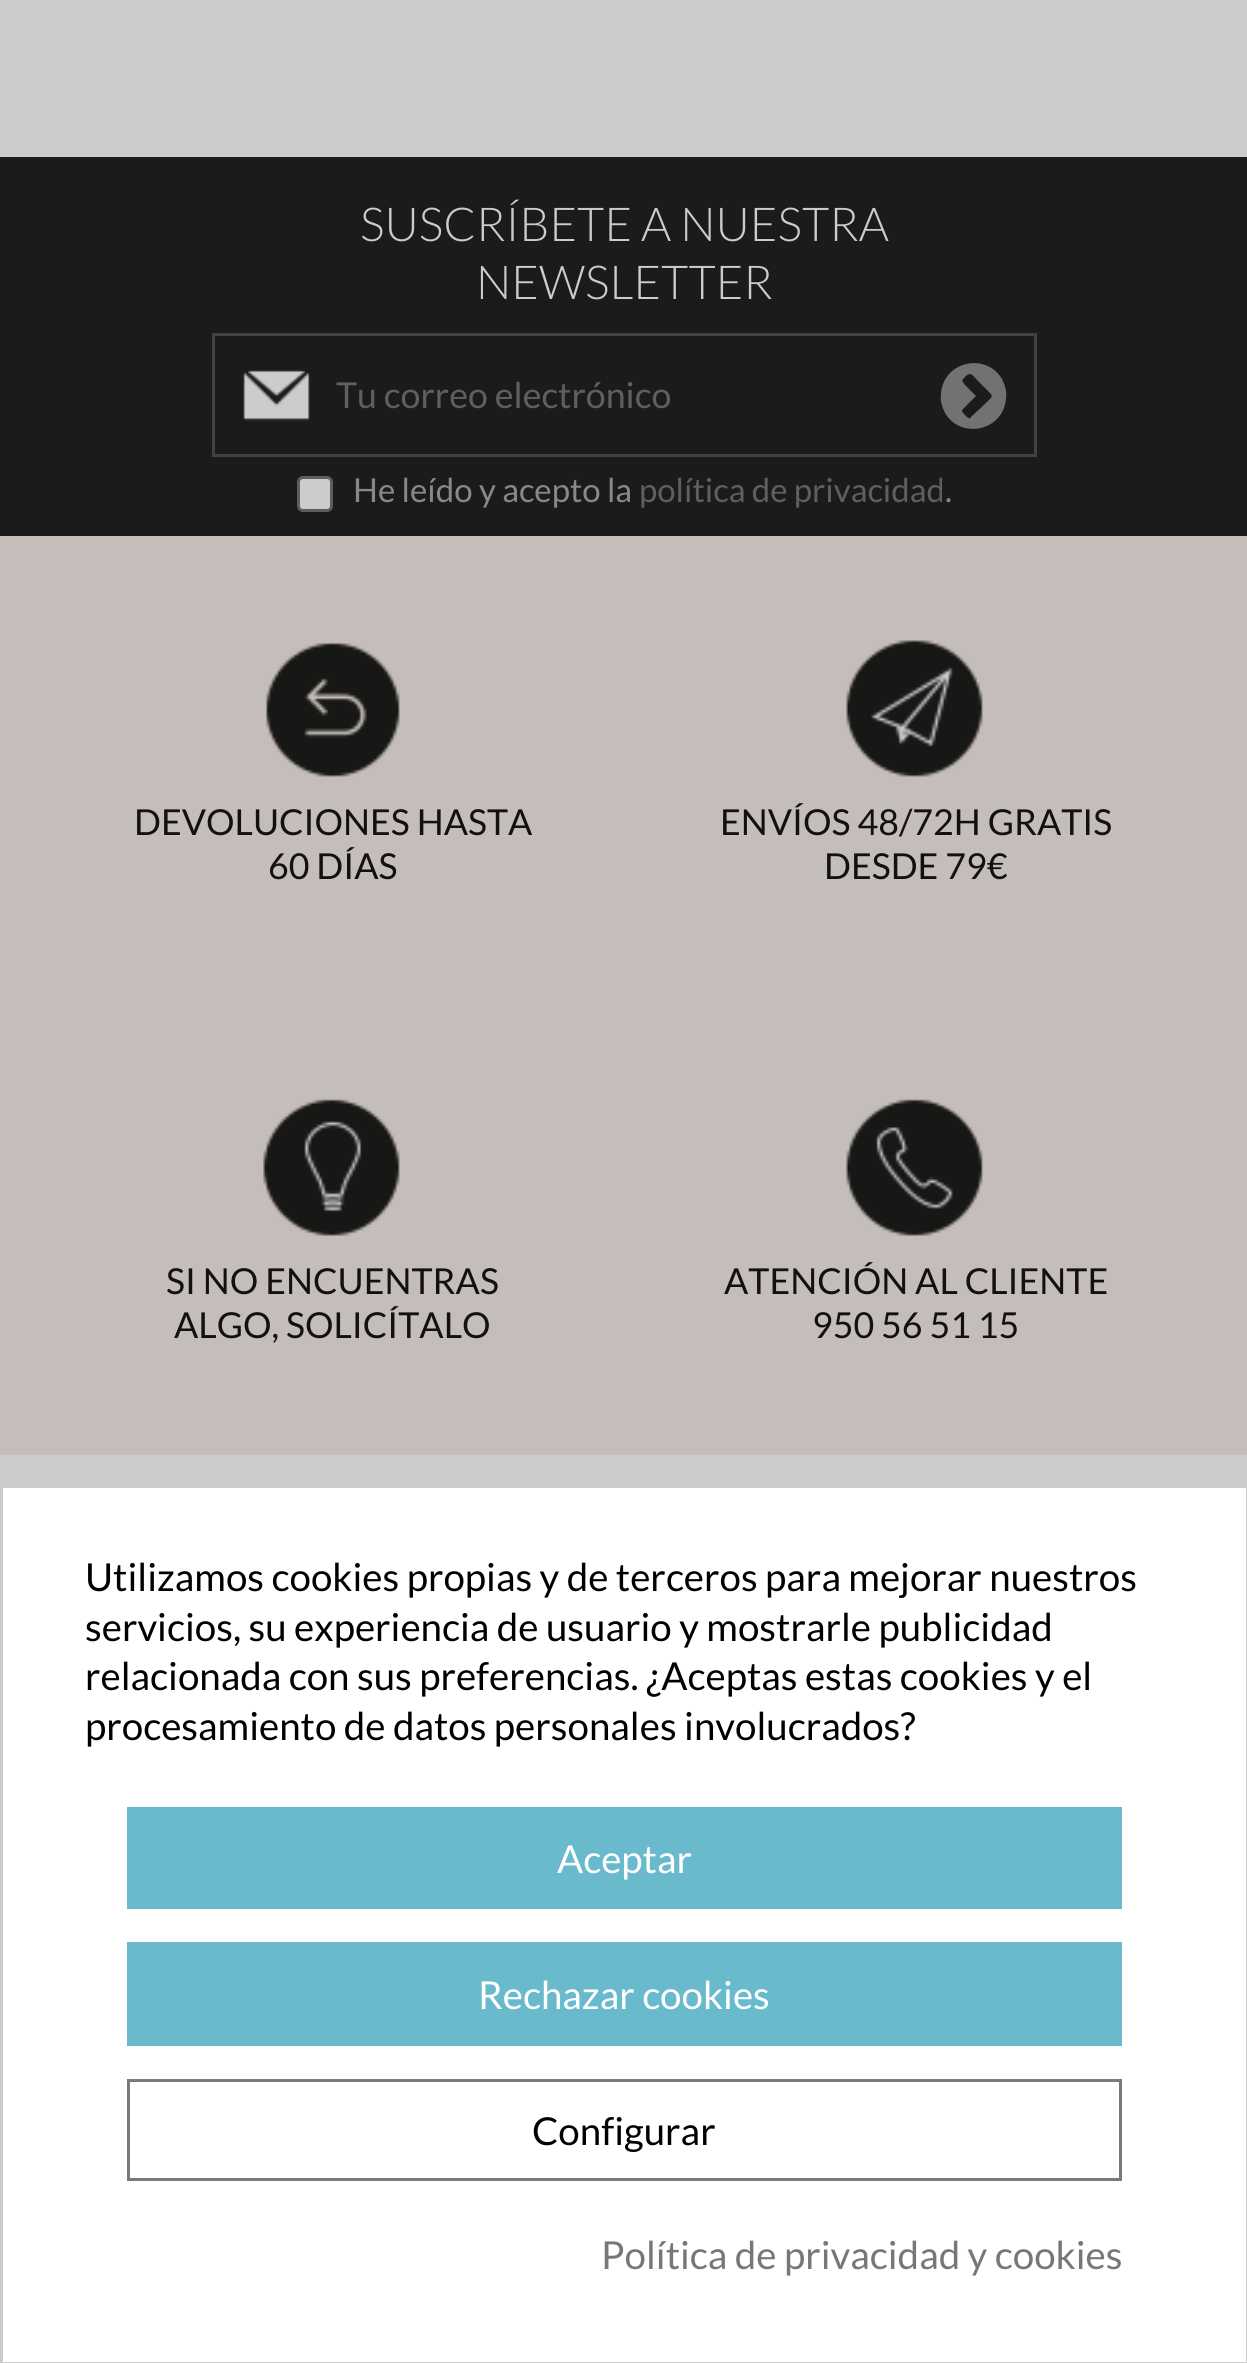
import math
import cairo

surface = cairo.ImageSurface(cairo.Format.RGB24, 1247, 2363)
ctx = cairo.Context(surface)
options = cairo.FontOptions()
options.set_hint_metrics(cairo.HintMetrics.OFF)
options.set_hint_style(cairo.HintStyle.NONE)
ctx.set_font_options(options)
ctx.set_miter_limit(4)


def ink(r, g, b):
    ctx.set_source_rgb(r / 255, g / 255, b / 255)


def write(x, y, s, family, size, color, bold=False, italic=False):
    ctx.select_font_face(family, cairo.FontSlant.ITALIC if italic else cairo.FontSlant.NORMAL, cairo.FontWeight.BOLD if bold else cairo.FontWeight.NORMAL)
    ctx.set_font_size(size)
    ink(*color)
    ctx.move_to(x, y)
    ctx.show_text(s)


def block(x, y, w, h, *color):
    ink(*color)
    ctx.rectangle(x, y, w, h)
    ctx.fill()


def round_path(x, y, w, h, r):
    ctx.new_sub_path()
    for i, (u, v) in enumerate([(x + w - r, y + h - r), (x + r, y + h - r), (x + r, y + r), (x + w - r, y + r)]):
        ctx.arc(u, v, r, i * math.pi / 2, (i + 1) * math.pi / 2)
    ctx.close_path()


def paste(path, x, y, w, h):
    ctx.save()
    ctx.set_source_surface(cairo.ImageSurface.create_from_png(path), x, y)
    ctx.rectangle(x, y, w, h)
    ctx.fill()
    ctx.restore()


s1 = dict(family="Lato Light", size=46.75, color=(204, 204, 204))
s2 = dict(family="Lato", size=35.75, color=(95, 95, 95))
s3 = dict(family="Lato", size=33, color=(136, 136, 136))
s4 = dict(family="Lato", size=33, color=(95, 95, 95))
s5 = dict(family="Lato", size=35.75, color=(17, 17, 17))
s6 = dict(family="Lato", size=38.5, color=(0, 0, 0))
s7 = dict(family="Lato", size=38.5, color=(255, 255, 255))
s8 = dict(family="Lato", size=38.5, color=(119, 119, 119))

ink(204, 204, 204)
ctx.paint()
block(0, 157, 1247, 379, 27, 27, 27)
write(360, 241, "SUSCRÍBETE A NUESTRA", **s1)
write(476, 299, "NEWSLETTER", **s1)
paste("pic1.png", 243, 370, 67, 51)
ctx.rectangle(213.5, 334.5, 822, 121)
ink(65, 65, 65)
ctx.set_line_width(3)
ctx.stroke()
write(336, 408, "Tu correo electrónico", **s2)
ink(115, 114, 114)
ctx.new_path()
ctx.move_to(971, 417)
ctx.line_to(988, 401)
ctx.curve_to(993, 396, 993, 396, 988, 391)
ctx.line_to(978, 381)
ctx.curve_to(974, 377, 971, 371, 966, 376)
ctx.curve_to(962, 380, 961, 380, 965, 385)
ctx.line_to(976, 396)
ctx.line_to(965, 407)
ctx.curve_to(961, 411, 961, 411, 965, 415)
ctx.curve_to(967, 417, 969, 420, 971, 417)
ctx.close_path()
ctx.move_to(1002, 379)
ctx.curve_to(1005, 385, 1007, 392, 1006, 398)
ctx.curve_to(1004, 431, 961, 440, 945, 413)
ctx.curve_to(942, 407, 940, 400, 941, 394)
ctx.curve_to(943, 361, 986, 352, 1002, 379)
ctx.close_path()
ctx.fill()
ink(204, 204, 204)
round_path(298.5, 477.5, 33, 33, 4.5)
ctx.fill_preserve()
ink(94, 94, 94)
ctx.stroke()
write(353, 502, "He leído y acepto la", **s3)
write(639, 502, "política de privacidad", **s4)
write(945, 502, ".", **s3)
block(0, 536, 1247, 919, 196, 189, 185)
paste("pic2.png", 266, 643, 134, 134)
write(134, 835, "DEVOLUCIONES HASTA", **s5)
write(268, 879, "60 DÍAS", **s5)
paste("pic3.png", 846, 640, 137, 137)
write(720, 835, "ENVÍOS 48/72H GRATIS", **s5)
write(824, 879, "DESDE 79€", **s5)
paste("pic4.png", 263, 1099, 137, 137)
write(166, 1294, "SI NO ENCUENTRAS", **s5)
write(174, 1338, "ALGO, SOLICÍTALO", **s5)
paste("pic5.png", 846, 1099, 137, 137)
write(724, 1294, "ATENCIÓN AL CLIENTE", **s5)
write(812, 1338, "950 56 51 15", **s5)
block(3, 1488, 1243, 874, 255, 255, 255)
write(85, 1591, "Utilizamos cookies propias y de terceros para mejorar nuestros", **s6)
write(85, 1641, "servicios, su experiencia de usuario y mostrarle publicidad", **s6)
write(85, 1690, "relacionada con sus preferencias. ¿Aceptas estas cookies y el", **s6)
write(85, 1740, "procesamiento de datos personales involucrados?", **s6)
block(127, 1807, 995, 102, 105, 186, 204)
write(557, 1873, "Aceptar", **s7)
block(127, 1942, 995, 104, 105, 186, 204)
write(478, 2009, "Rechazar cookies", **s7)
ctx.rectangle(128.5, 2080.5, 992, 99)
ink(122, 122, 122)
ctx.stroke()
write(532, 2145, "Configurar", **s6)
write(601, 2269, "Política de privacidad y cookies", **s8)
surface.write_to_png("screenshot.png")
